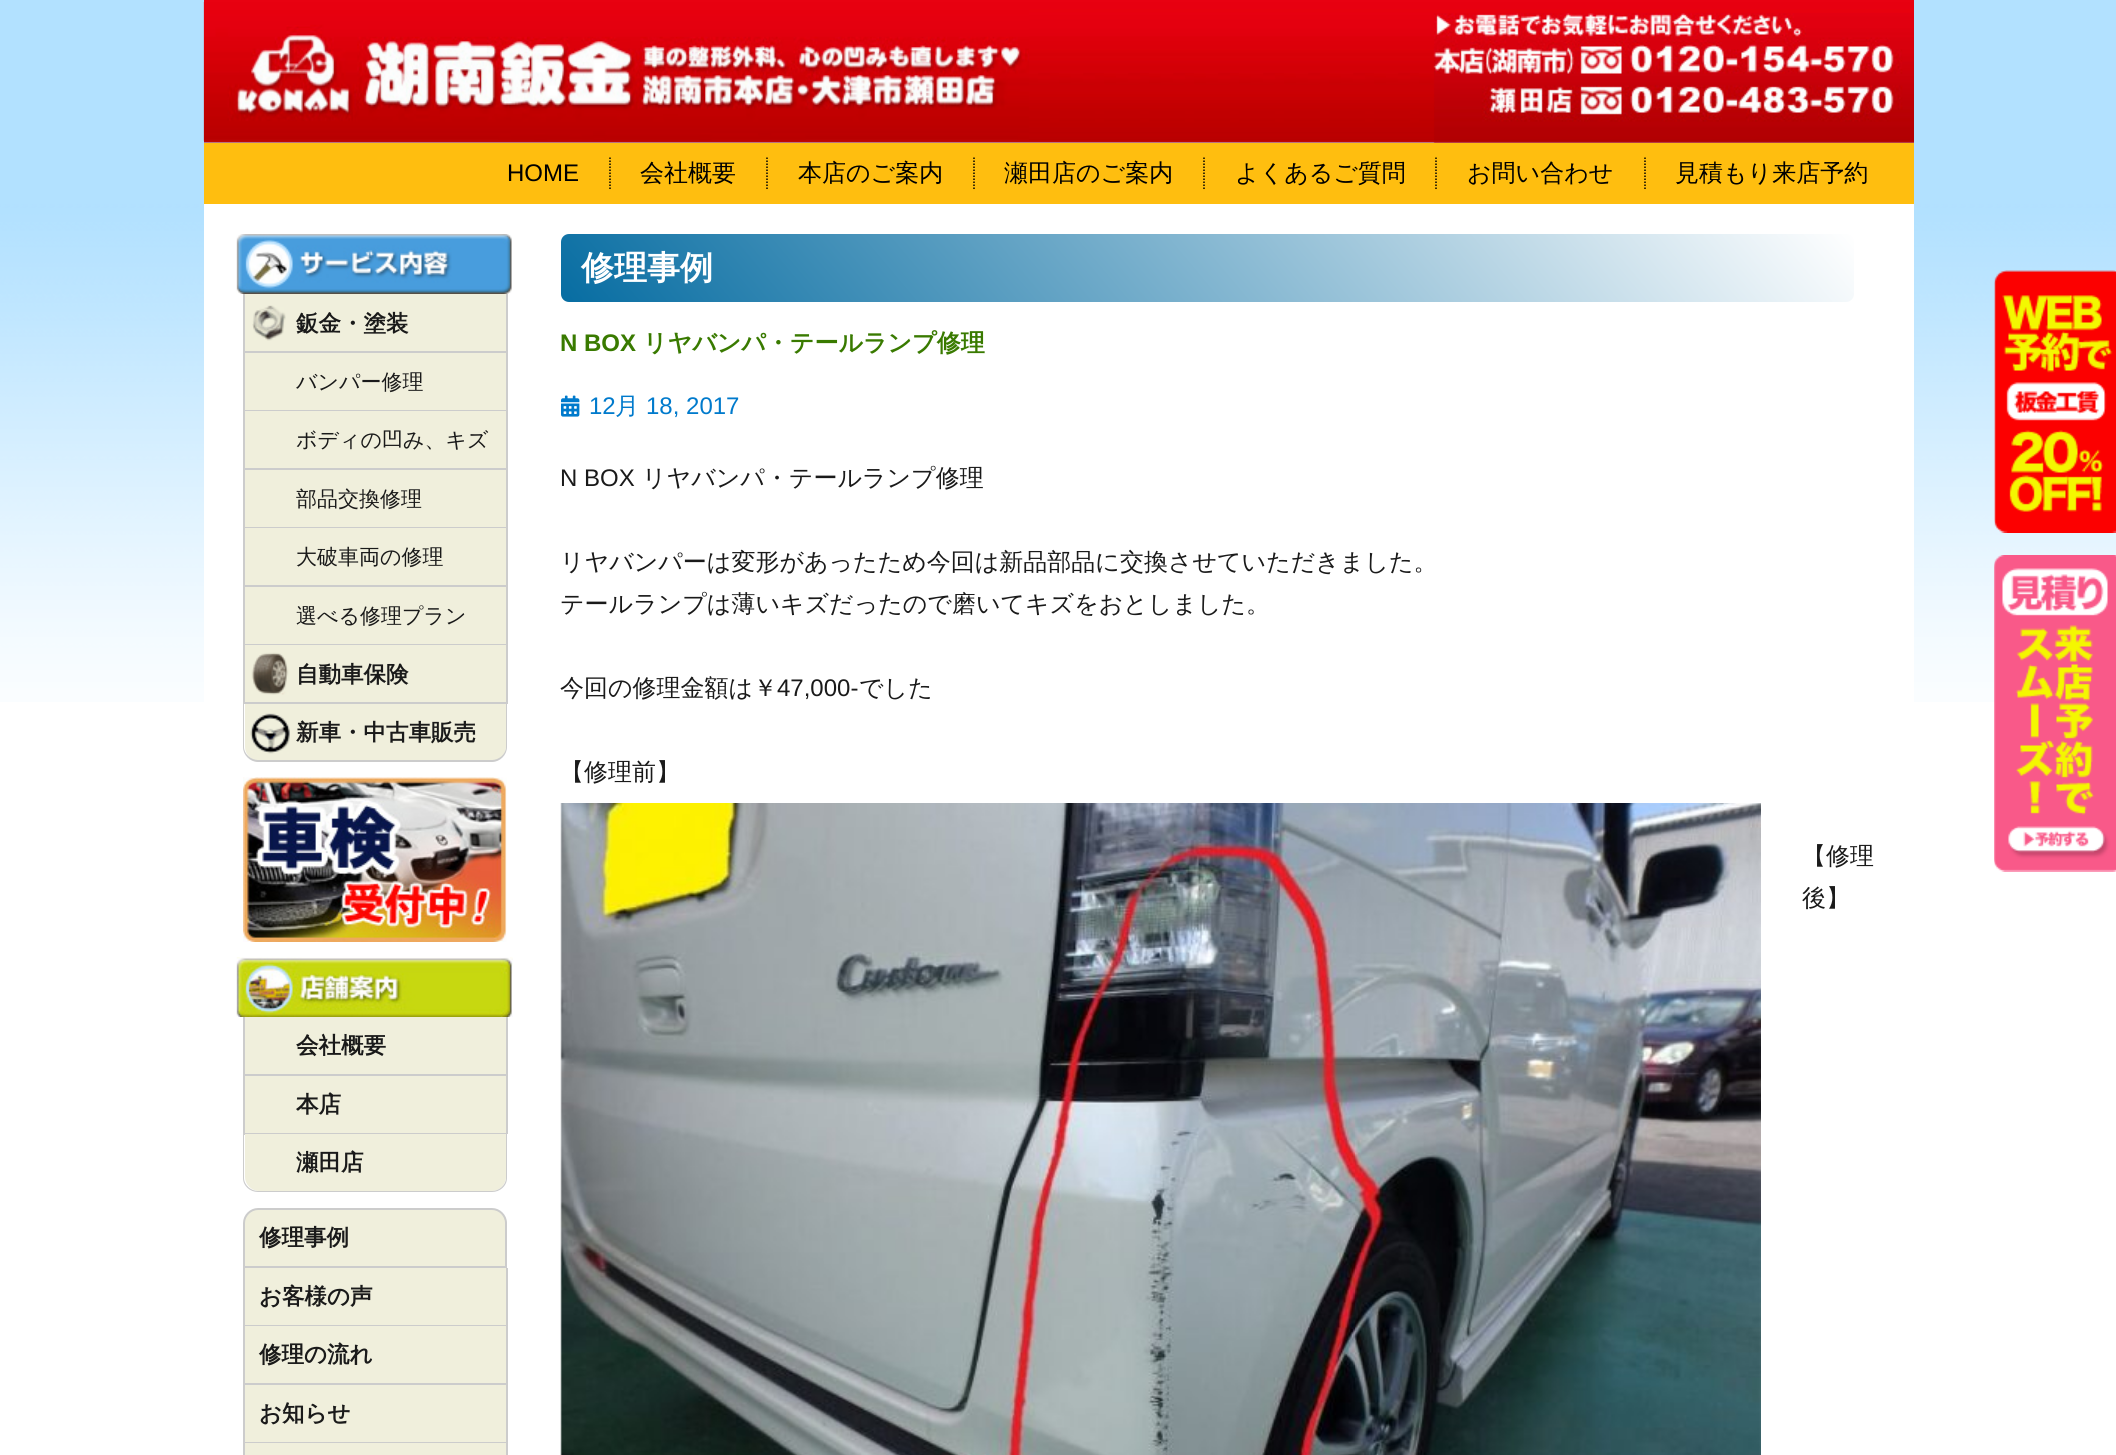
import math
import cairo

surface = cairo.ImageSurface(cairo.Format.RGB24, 2116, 1455)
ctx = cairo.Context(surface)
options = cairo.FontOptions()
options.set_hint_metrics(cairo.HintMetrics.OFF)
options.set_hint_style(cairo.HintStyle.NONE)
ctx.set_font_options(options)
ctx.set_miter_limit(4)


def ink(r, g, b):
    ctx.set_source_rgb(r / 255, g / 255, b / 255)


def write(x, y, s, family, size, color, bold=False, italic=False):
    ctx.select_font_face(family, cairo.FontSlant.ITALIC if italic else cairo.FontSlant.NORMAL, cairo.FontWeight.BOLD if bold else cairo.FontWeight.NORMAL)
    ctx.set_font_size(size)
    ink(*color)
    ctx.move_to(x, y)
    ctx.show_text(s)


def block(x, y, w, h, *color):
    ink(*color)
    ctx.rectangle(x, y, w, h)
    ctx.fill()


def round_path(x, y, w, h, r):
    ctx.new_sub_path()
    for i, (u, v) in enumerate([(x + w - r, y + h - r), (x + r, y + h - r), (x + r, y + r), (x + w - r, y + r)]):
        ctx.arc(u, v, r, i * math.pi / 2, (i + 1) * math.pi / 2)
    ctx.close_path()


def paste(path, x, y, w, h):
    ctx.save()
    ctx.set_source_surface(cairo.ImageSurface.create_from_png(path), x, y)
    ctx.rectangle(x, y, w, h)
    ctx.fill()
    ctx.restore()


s1 = dict(family="Liberation Sans", size=24, color=(0, 0, 0))
s2 = dict(family="WenQuanYi Zen Hei Medium", size=24, color=(0, 0, 0))
s3 = dict(family="WenQuanYi Zen Hei", size=22.5, color=(26, 26, 26), bold=True)
s4 = dict(family="WenQuanYi Zen Hei Medium", size=21, color=(26, 26, 26))
s5 = dict(family="WenQuanYi Zen Hei", size=33, color=(255, 255, 255), bold=True)
s6 = dict(family="Liberation Sans", size=24, color=(57, 122, 0), bold=True)
s7 = dict(family="WenQuanYi Zen Hei", size=24, color=(57, 122, 0), bold=True)
s8 = dict(family="Liberation Sans", size=24, color=(0, 122, 204))
s9 = dict(family="WenQuanYi Zen Hei Medium", size=24, color=(0, 122, 204))
s10 = dict(family="Liberation Sans", size=24, color=(26, 26, 26))
s11 = dict(family="WenQuanYi Zen Hei Medium", size=24, color=(26, 26, 26))

ink(255, 255, 255)
ctx.paint()
block(0, 0, 2116, 204, 178, 225, 255)
paste("pic1.png", 204, 0, 855, 143)
paste("pic2.png", 203, 2, 826, 139)
paste("pic1.png", 1059, 0, 855, 143)
paste("pic3.png", 1433, 13, 481, 130)
block(204, 143, 1710, 61, 255, 190, 15)
write(507, 181, "HOME", **s1)
ctx.new_path()
ctx.move_to(610, 157.5)
ctx.line_to(610, 189)
ctx.set_line_width(1.5)
ctx.set_dash([1.5, 1.5])
ctx.stroke()
write(640, 181, "会社概要", **s2)
ctx.new_path()
ctx.move_to(767, 157.5)
ctx.line_to(767, 189)
ctx.stroke()
write(798, 181, "本店のご案内", **s2)
ctx.new_path()
ctx.move_to(974, 157.5)
ctx.line_to(974, 189)
ctx.stroke()
write(1004, 181, "瀬田店のご案内", **s2)
ctx.new_path()
ctx.move_to(1204, 157.5)
ctx.line_to(1204, 189)
ctx.stroke()
write(1235, 181, "よくあるご質問", **s2)
ctx.new_path()
ctx.move_to(1436, 157.5)
ctx.line_to(1436, 189)
ctx.stroke()
write(1467, 181, "お問い合わせ", **s2)
ctx.new_path()
ctx.move_to(1645, 157.5)
ctx.line_to(1645, 189)
ctx.stroke()
write(1675, 181, "見積もり来店予約", **s2)
paste("pic4.png", 0, 204, 2116, 498)
block(204, 204, 1710, 498, 255, 255, 255)
paste("pic5.png", 236, 234, 276, 60)
block(245, 294, 261, 57, 240, 239, 220)
block(506, 294, 2, 410, 204, 204, 204)
block(243, 351, 264, 2, 204, 204, 204)
block(243, 294, 2, 59, 204, 204, 204)
paste("pic6.png", 252, 305, 34, 36)
write(296, 331, "鈑金・塗装", **s3)
block(245, 353, 261, 57, 240, 239, 220)
block(243, 410, 264, 1, 204, 204, 204)
block(243, 353, 2, 58, 204, 204, 204)
write(296, 389, "バンパー修理", **s4)
block(245, 411, 261, 57, 240, 239, 220)
block(243, 468, 264, 2, 204, 204, 204)
block(243, 411, 2, 59, 204, 204, 204)
write(296, 447, "ボディの凹み、キズ", **s4)
block(245, 470, 261, 57, 240, 239, 220)
block(243, 527, 264, 1, 204, 204, 204)
block(243, 470, 2, 58, 204, 204, 204)
write(296, 506, "部品交換修理", **s4)
block(245, 528, 261, 57, 240, 239, 220)
block(243, 585, 264, 2, 204, 204, 204)
block(243, 528, 2, 59, 204, 204, 204)
write(296, 564, "大破車両の修理", **s4)
block(245, 587, 261, 57, 240, 239, 220)
block(243, 644, 264, 1, 204, 204, 204)
block(243, 587, 2, 58, 204, 204, 204)
write(296, 623, "選べる修理プラン", **s4)
block(245, 645, 261, 57, 240, 239, 220)
block(243, 702, 264, 2, 204, 204, 204)
block(243, 645, 2, 59, 204, 204, 204)
paste("pic7.png", 251, 652, 38, 43)
write(296, 682, "自動車保険", **s3)
ink(240, 239, 220)
ctx.new_path()
ctx.move_to(245, 704)
ctx.line_to(506, 704)
ctx.line_to(506, 747)
ctx.curve_to(506, 754.5, 499.5, 761, 492, 761)
ctx.line_to(259, 761)
ctx.curve_to(251.5, 761, 245, 754.5, 245, 747)
ctx.close_path()
ctx.fill()
ink(204, 204, 204)
ctx.set_fill_rule(cairo.FillRule.EVEN_ODD)
ctx.new_path()
ctx.move_to(243, 704)
ctx.line_to(507, 704)
ctx.line_to(507, 747)
ctx.curve_to(507, 755, 500, 762, 492, 762)
ctx.line_to(258, 762)
ctx.curve_to(250, 762, 243, 755, 243, 747)
ctx.close_path()
ctx.move_to(244, 704)
ctx.line_to(506, 704)
ctx.line_to(506, 747)
ctx.curve_to(506, 754, 499, 760, 492, 760)
ctx.line_to(258, 760)
ctx.curve_to(251, 760, 244, 754, 244, 747)
ctx.close_path()
ctx.fill()
paste("pic8.png", 250, 713, 40, 41)
write(296, 740, "新車・中古車販売", **s3)
paste("pic9.png", 243, 777, 264, 165)
paste("pic10.png", 236, 957, 277, 60)
block(245, 1017, 261, 57, 240, 239, 220)
block(506, 1017, 2, 117, 204, 204, 204)
block(243, 1074, 264, 2, 204, 204, 204)
block(243, 1017, 2, 59, 204, 204, 204)
write(296, 1053, "会社概要", **s3)
block(245, 1076, 261, 57, 240, 239, 220)
block(243, 1133, 264, 2, 204, 204, 204)
block(243, 1076, 2, 58, 204, 204, 204)
write(296, 1112, "本店", **s3)
ink(240, 239, 220)
ctx.new_path()
ctx.move_to(245, 1134)
ctx.line_to(506, 1134)
ctx.line_to(506, 1177)
ctx.curve_to(506, 1184.5, 499.5, 1191, 492, 1191)
ctx.line_to(259, 1191)
ctx.curve_to(251.5, 1191, 245, 1184.5, 245, 1177)
ctx.close_path()
ctx.fill()
ink(204, 204, 204)
ctx.new_path()
ctx.move_to(243, 1134)
ctx.line_to(507, 1134)
ctx.line_to(507, 1178)
ctx.curve_to(507, 1186, 500, 1192, 492, 1192)
ctx.line_to(258, 1192)
ctx.curve_to(250, 1192, 243, 1186, 243, 1178)
ctx.close_path()
ctx.move_to(244, 1134)
ctx.line_to(506, 1134)
ctx.line_to(506, 1178)
ctx.curve_to(506, 1185, 499, 1191, 492, 1191)
ctx.line_to(258, 1191)
ctx.curve_to(251, 1191, 244, 1185, 244, 1178)
ctx.close_path()
ctx.fill()
write(296, 1170, "瀬田店", **s3)
ink(240, 239, 220)
ctx.new_path()
ctx.move_to(258, 1209)
ctx.line_to(492, 1209)
ctx.curve_to(499.5, 1209, 506, 1215.5, 506, 1223)
ctx.line_to(506, 1267)
ctx.line_to(244, 1267)
ctx.line_to(244, 1223)
ctx.curve_to(244, 1215.5, 250.5, 1209, 258, 1209)
ctx.close_path()
ctx.fill_preserve()
ink(204, 204, 204)
ctx.set_line_width(2)
ctx.set_dash([])
ctx.stroke()
write(259, 1245, "修理事例", **s3)
block(245, 1268, 261, 57, 240, 239, 220)
block(506, 1268, 2, 187, 204, 204, 204)
block(243, 1325, 264, 1, 204, 204, 204)
block(243, 1268, 2, 58, 204, 204, 204)
write(259, 1304, "お客様の声", **s3)
block(245, 1326, 261, 57, 240, 239, 220)
block(243, 1383, 264, 2, 204, 204, 204)
block(243, 1326, 2, 59, 204, 204, 204)
write(259, 1362, "修理の流れ", **s3)
block(245, 1385, 261, 57, 240, 239, 220)
block(243, 1442, 264, 1, 204, 204, 204)
block(243, 1385, 2, 70, 204, 204, 204)
write(259, 1421, "お知らせ", **s3)
block(245, 1443, 261, 12, 240, 239, 220)
gradient = cairo.LinearGradient(811, 600, 1604, -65)
gradient.add_color_stop_rgba(0, 0.027, 0.427, 0.635, 1)
gradient.add_color_stop_rgba(1, 1, 1, 1, 1)
ctx.set_source(gradient)
round_path(561, 234, 1293, 68, 8)
ctx.fill()
write(581, 279, "修理事例", **s5)
write(560, 351, "N BOX", **s6)
write(643, 351, "リヤバンパ・テールランプ修理", **s7)
paste("pic11.png", 561, 395, 19, 22)
write(589, 414, "12", **s8)
write(615, 414, "月", **s9)
write(646, 414, "18, 2017", **s8)
write(560, 486, "N BOX", **s10)
write(642, 486, "リヤバンパ・テールランプ修理", **s11)
write(560, 570, "リヤバンパーは変形があったため今回は新品部品に交換させていただきました。", **s11)
write(560, 612, "テールランプは薄いキズだったので磨いてキズをおとしました。", **s11)
write(560, 696, "今回の修理金額は￥", **s11)
write(777, 696, "47,000-", **s10)
write(859, 696, "でした", **s11)
write(560, 780, "【修理前】", **s11)
paste("pic12.png", 560, 803, 1201, 652)
write(1802, 864, "【修理", **s11)
write(1802, 906, "後】", **s11)
paste("pic13.png", 1994, 270, 122, 263)
paste("pic14.png", 1994, 555, 122, 317)
surface.write_to_png("screenshot.png")
